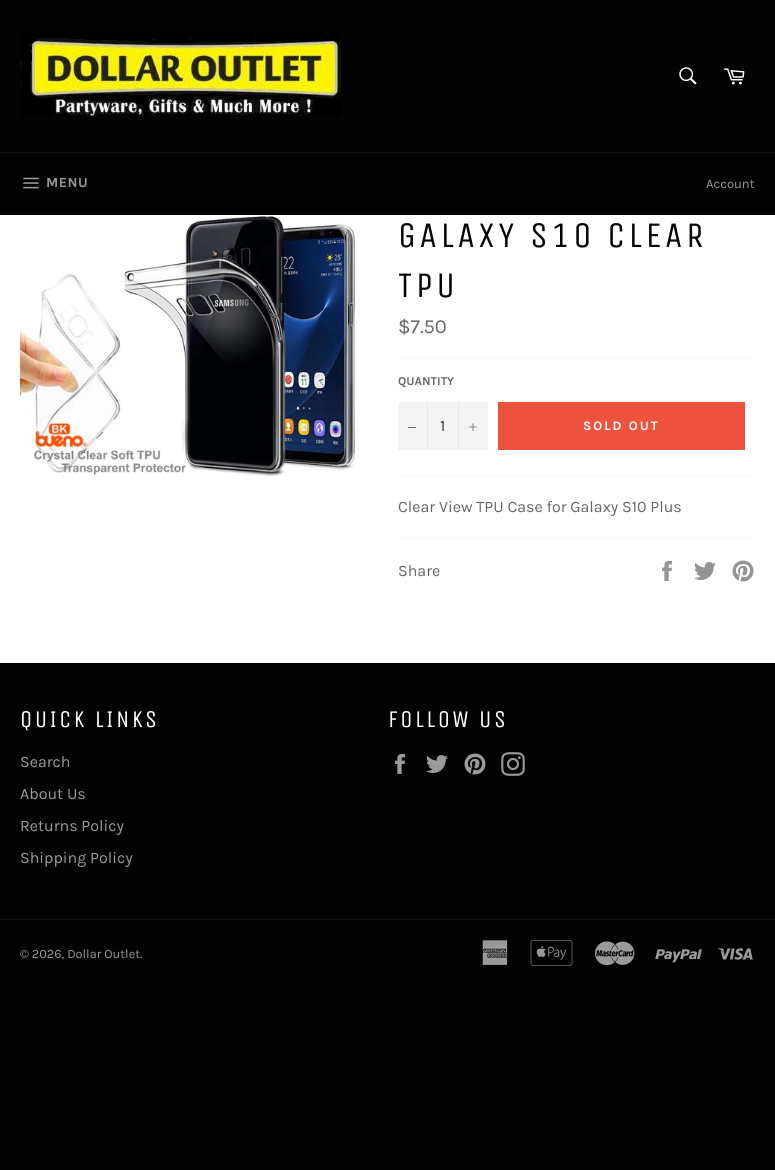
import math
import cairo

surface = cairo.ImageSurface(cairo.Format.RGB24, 775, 1170)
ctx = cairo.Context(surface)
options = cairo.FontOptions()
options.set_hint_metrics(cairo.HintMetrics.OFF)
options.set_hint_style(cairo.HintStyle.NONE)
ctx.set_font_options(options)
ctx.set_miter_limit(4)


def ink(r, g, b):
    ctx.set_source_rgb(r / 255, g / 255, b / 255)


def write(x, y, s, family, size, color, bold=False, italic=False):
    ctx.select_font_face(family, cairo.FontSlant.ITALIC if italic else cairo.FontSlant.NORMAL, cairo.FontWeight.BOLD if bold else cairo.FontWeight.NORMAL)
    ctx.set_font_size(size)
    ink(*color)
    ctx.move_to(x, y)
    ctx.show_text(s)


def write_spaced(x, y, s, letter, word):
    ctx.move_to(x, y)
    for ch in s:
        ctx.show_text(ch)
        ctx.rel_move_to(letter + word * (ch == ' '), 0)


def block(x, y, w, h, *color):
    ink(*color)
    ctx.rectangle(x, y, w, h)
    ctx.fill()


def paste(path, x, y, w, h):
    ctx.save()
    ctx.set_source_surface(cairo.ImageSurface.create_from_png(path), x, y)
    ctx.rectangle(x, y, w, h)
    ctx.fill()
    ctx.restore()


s1 = dict(family="Karla", size=13, color=(154, 154, 154))
s2 = dict(family="Karla", size=20, color=(102, 102, 102))
s3 = dict(family="Karla", size=12, color=(102, 102, 102), bold=True)
s4 = dict(family="Karla", size=16, color=(51, 51, 51))
s5 = dict(family="Karla", size=16, color=(102, 102, 102))
s6 = dict(family="Karla", size=16, color=(154, 154, 154))
s7 = dict(family="Karla", size=12.75, color=(154, 154, 154))

ink(3, 3, 3)
ctx.paint()
paste("pic1.png", 20, 32, 321, 84)
paste("pic2.png", 679, 67, 18, 18)
paste("pic3.png", 723, 68, 22, 17)
block(0, 152, 775, 1, 16, 16, 16)
paste("pic4.png", 23, 177, 16, 12)
ctx.select_font_face("Karla", cairo.FontSlant.NORMAL, cairo.FontWeight.BOLD)
ctx.set_font_size(14)
ink(154, 154, 154)
write_spaced(46, 187, "MENU", 0.5, 0)
write(706, 188, "Account", **s1)
block(0, 215, 775, 448, 255, 255, 255)
paste("pic5.png", 20, 215, 337, 262)
ctx.select_font_face("Unica One")
ctx.set_font_size(36)
ink(3, 3, 3)
write_spaced(398, 247, "GALAXY S10 CLEAR", 3.6, 0)
write_spaced(398, 297, "TPU", 3.6, 0)
write(398, 333, "$7.50", **s2)
block(398, 357, 357, 1, 247, 247, 247)
write(398, 385, "QUANTITY", **s3)
block(398, 402, 90, 48, 244, 244, 244)
block(427, 402, 1, 48, 231, 231, 231)
block(408, 427, 8, 1, 102, 102, 102)
write(440, 431, "1", **s4)
block(458, 402, 1, 48, 231, 231, 231)
paste("pic6.png", 469, 423, 8, 8)
block(498, 402, 247, 48, 236, 82, 62)
ctx.select_font_face("Karla", cairo.FontSlant.NORMAL, cairo.FontWeight.BOLD)
ctx.set_font_size(13)
ink(255, 255, 255)
write_spaced(583, 430, "SOLD OUT", 2, 0)
block(398, 475, 357, 1, 247, 247, 247)
write(398, 512, "Clear View TPU Case for Galaxy S10 Plus", **s5)
block(398, 538, 357, 1, 247, 247, 247)
write(398, 576, "Share", **s5)
paste("pic7.png", 662, 561, 10, 20)
paste("pic8.png", 694, 562, 22, 18)
paste("pic9.png", 732, 560, 22, 22)
ctx.select_font_face("Unica One")
ctx.set_font_size(24)
ink(255, 255, 255)
write_spaced(20, 727, "QUICK LINKS", 2.4, 0)
write(20, 767, "Search", **s6)
write(20, 799, "About Us", **s6)
write(20, 831, "Returns Policy", **s6)
write(20, 863, "Shipping Policy", **s6)
ctx.select_font_face("Unica One")
ctx.set_font_size(24)
ink(255, 255, 255)
write_spaced(388, 727, "FOLLOW US", 2.4, 0)
paste("pic10.png", 395, 754, 10, 20)
paste("pic11.png", 426, 755, 22, 18)
paste("pic12.png", 464, 753, 22, 22)
paste("pic13.png", 501, 752, 24, 24)
block(0, 919, 775, 1, 16, 16, 16)
write(20, 958, "© 2026, Dollar Outlet", **s7)
write(140, 958, ".", **s7)
paste("pic14.png", 482, 940, 26, 25)
paste("pic15.png", 530, 940, 43, 26)
paste("pic16.png", 595, 941, 40, 25)
paste("pic17.png", 655, 949, 47, 14)
paste("pic18.png", 717, 948, 36, 12)
surface.write_to_png("screenshot.png")
